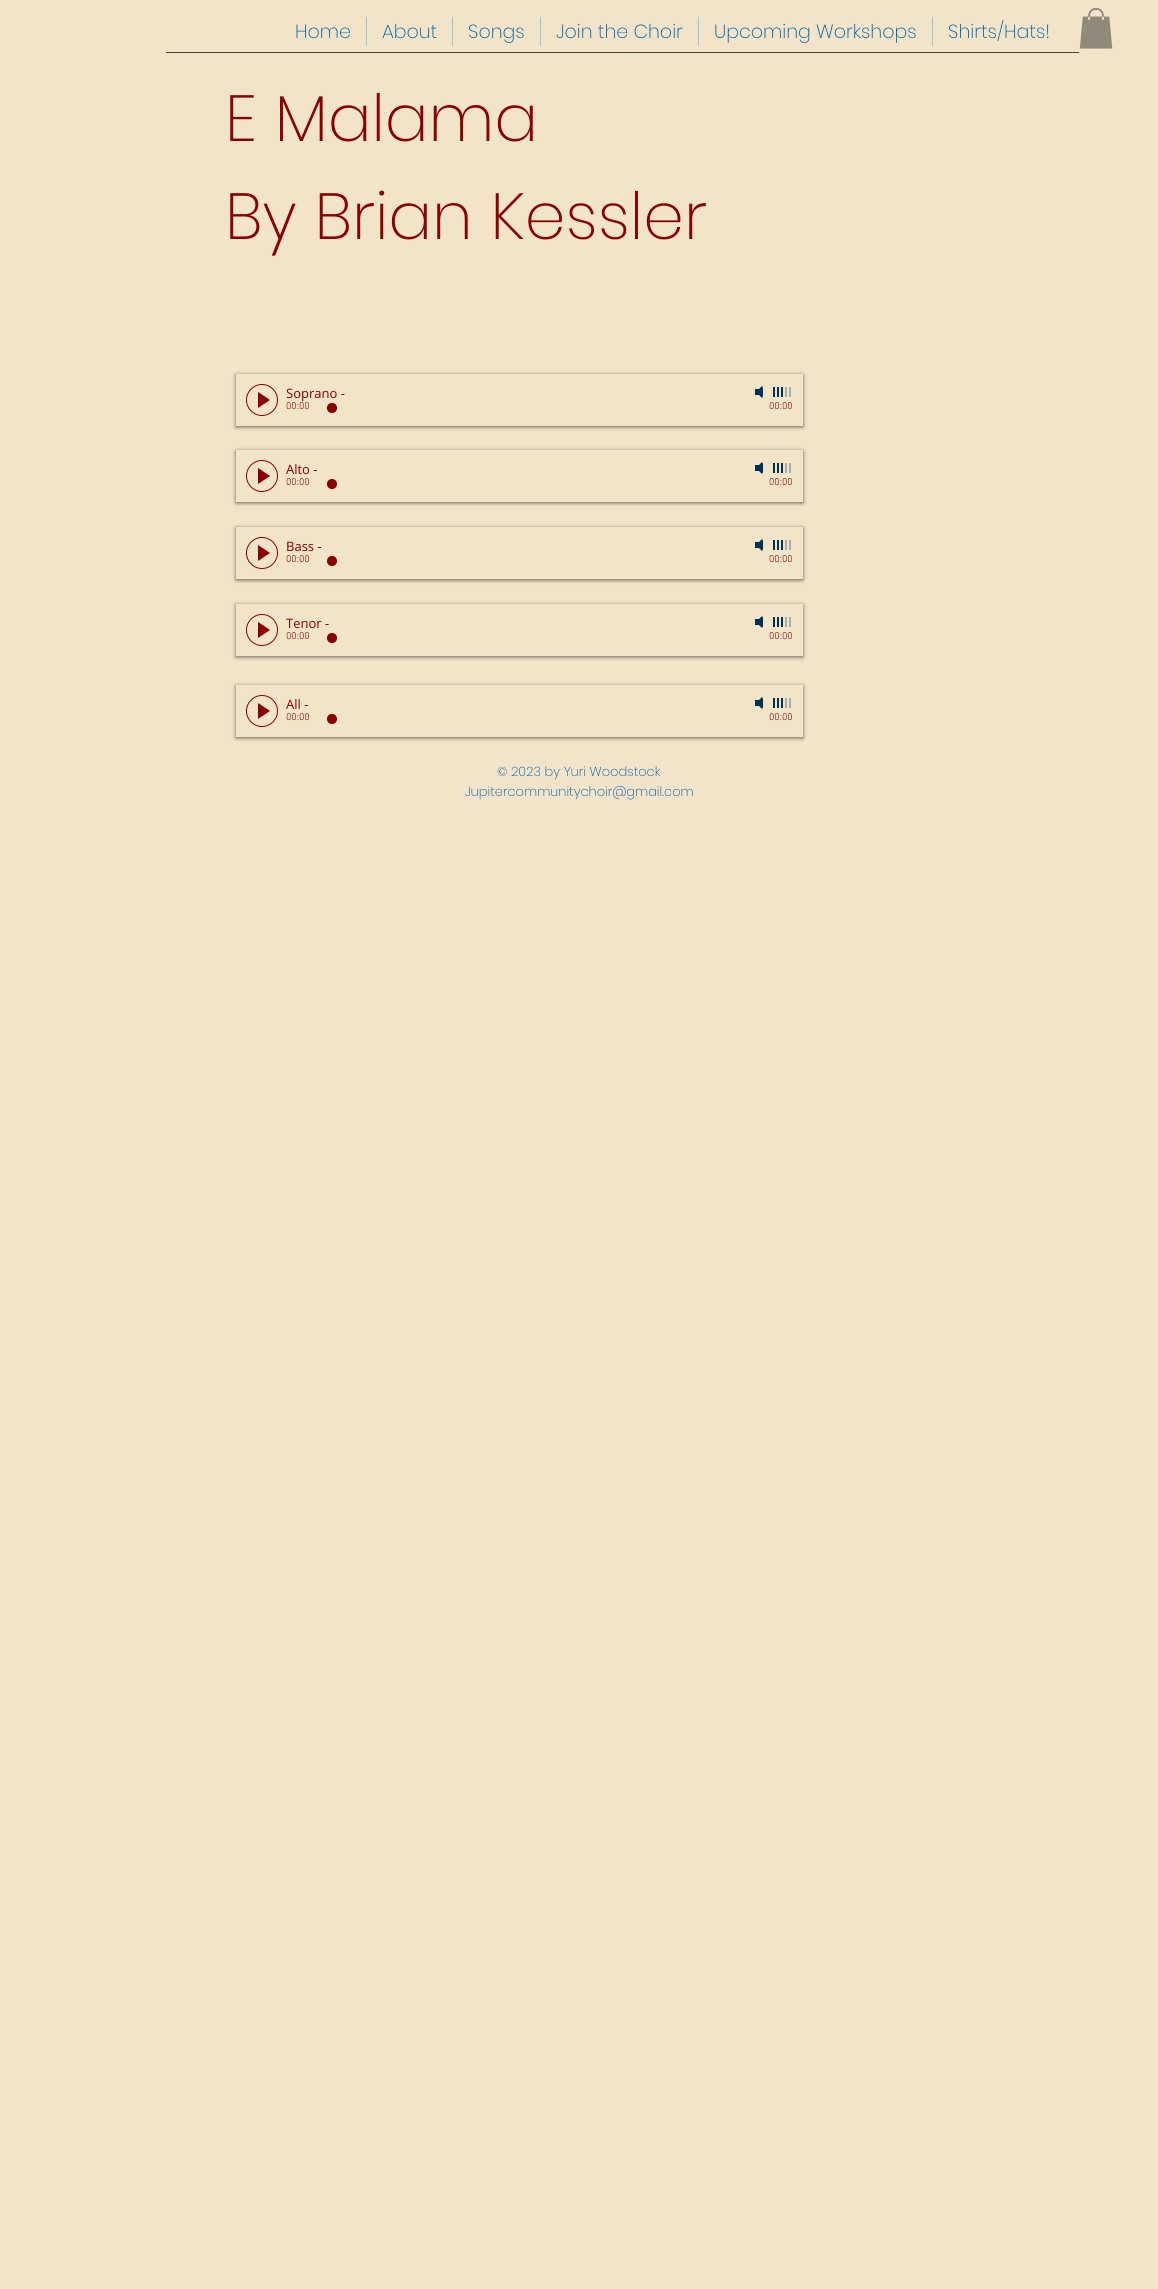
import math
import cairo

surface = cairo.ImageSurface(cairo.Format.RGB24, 1158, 2289)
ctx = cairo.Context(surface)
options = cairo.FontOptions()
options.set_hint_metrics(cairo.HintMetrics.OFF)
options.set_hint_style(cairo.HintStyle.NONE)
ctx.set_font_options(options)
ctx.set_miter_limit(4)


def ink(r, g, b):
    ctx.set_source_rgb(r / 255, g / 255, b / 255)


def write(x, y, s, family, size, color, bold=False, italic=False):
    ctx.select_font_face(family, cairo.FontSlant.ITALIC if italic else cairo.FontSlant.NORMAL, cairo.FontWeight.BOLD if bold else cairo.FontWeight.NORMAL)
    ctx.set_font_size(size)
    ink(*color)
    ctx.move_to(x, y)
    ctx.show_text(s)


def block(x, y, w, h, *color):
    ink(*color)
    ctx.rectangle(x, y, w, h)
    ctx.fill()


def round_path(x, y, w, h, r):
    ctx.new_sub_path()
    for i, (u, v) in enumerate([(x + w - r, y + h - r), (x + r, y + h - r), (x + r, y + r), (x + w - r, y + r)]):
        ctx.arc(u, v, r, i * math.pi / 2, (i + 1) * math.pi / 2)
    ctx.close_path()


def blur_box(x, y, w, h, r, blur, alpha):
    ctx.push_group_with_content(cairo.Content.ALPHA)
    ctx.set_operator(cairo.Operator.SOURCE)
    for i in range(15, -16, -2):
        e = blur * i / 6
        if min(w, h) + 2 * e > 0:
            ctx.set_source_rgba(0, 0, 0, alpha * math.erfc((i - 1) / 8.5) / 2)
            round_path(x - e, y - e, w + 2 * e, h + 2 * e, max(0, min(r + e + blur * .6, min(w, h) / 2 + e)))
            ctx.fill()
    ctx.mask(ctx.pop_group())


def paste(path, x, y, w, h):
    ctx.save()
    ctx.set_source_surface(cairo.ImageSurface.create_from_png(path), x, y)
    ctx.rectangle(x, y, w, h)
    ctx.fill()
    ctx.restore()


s1 = dict(family="Poppins ExtraLight", size=19, color=(0, 99, 169))
s2 = dict(family="Poppins ExtraLight", size=65, color=(139, 0, 0))
s3 = dict(family="Open Sans", size=13, color=(139, 0, 0))
s4 = dict(family="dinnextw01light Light", size=10, color=(139, 0, 0))
s5 = dict(family="Poppins ExtraLight", size=13, color=(0, 99, 169))

ink(242, 228, 201)
ctx.paint()
write(295, 38, "Home", **s1)
block(366, 17, 1, 29, 157, 200, 220)
write(382, 38, "About", **s1)
block(452, 17, 1, 29, 157, 200, 220)
write(468, 38, "Songs", **s1)
block(540, 17, 1, 29, 157, 200, 220)
write(556, 38, "Join the Choir", **s1)
block(698, 17, 1, 29, 157, 200, 220)
write(714, 38, "Upcoming Workshops", **s1)
block(932, 17, 1, 29, 157, 200, 220)
write(948, 38, "Shirts/Hats!", **s1)
block(166, 52, 913, 1, 66, 66, 66)
paste("pic1.png", 1079, 8, 34, 41)
write(225, 141, "E Malama", **s2)
write(225, 239, "By Brian Kessler", **s2)
ctx.save()
ctx.set_fill_rule(cairo.FillRule.EVEN_ODD)
ctx.new_path()
ctx.move_to(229, 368)
ctx.line_to(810, 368)
ctx.line_to(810, 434)
ctx.line_to(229, 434)
ctx.close_path()
ctx.move_to(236, 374)
ctx.line_to(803, 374)
ctx.line_to(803, 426)
ctx.line_to(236, 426)
ctx.close_path()
ctx.clip()
ink(0, 0, 0)
blur_box(236, 375, 567, 52, 0, 2, 0.6)
ctx.restore()
ctx.arc(262, 400, 15.5, 0, 2 * math.pi)
ctx.set_line_width(1)
ctx.stroke()
ctx.new_path()
ctx.move_to(258, 408)
ctx.line_to(258, 392)
ctx.line_to(270, 400)
ctx.close_path()
ctx.fill()
write(286, 398, "Soprano -", **s3)
ink(0, 49, 84)
ctx.new_path()
ctx.move_to(756, 392)
ctx.line_to(762, 398)
ctx.curve_to(763.5, 396.5, 763, 394, 763, 392)
ctx.curve_to(763, 390, 763.5, 387.5, 762, 386)
ctx.close_path()
ctx.fill()
block(755, 389, 4, 6, 0, 49, 84)
block(773, 387, 2, 10, 0, 49, 84)
block(777, 387, 2, 10, 0, 49, 84)
block(781, 387, 2, 10, 0, 49, 84)
block(785, 387, 2, 10, 169, 174, 166)
block(789, 387, 2, 10, 169, 174, 166)
write(286, 409, "00:00", **s4)
write(769, 409, "00:00", **s4)
ink(243, 230, 206)
ctx.new_path()
ctx.move_to(327, 408)
ctx.curve_to(327, 410, 328, 411, 330, 411)
ctx.line_to(748, 411)
ctx.curve_to(749, 411, 750, 410, 750, 408)
ctx.curve_to(750, 409, 749, 410, 748, 410)
ctx.line_to(330, 410)
ctx.curve_to(328, 410, 327, 409, 327, 408)
ctx.close_path()
ctx.fill()
ink(139, 0, 0)
ctx.arc(332, 408, 5, 0, 2 * math.pi)
ctx.fill()
ctx.save()
ctx.set_fill_rule(cairo.FillRule.EVEN_ODD)
ctx.new_path()
ctx.move_to(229, 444)
ctx.line_to(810, 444)
ctx.line_to(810, 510)
ctx.line_to(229, 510)
ctx.close_path()
ctx.move_to(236, 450)
ctx.line_to(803, 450)
ctx.line_to(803, 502)
ctx.line_to(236, 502)
ctx.close_path()
ctx.clip()
ink(0, 0, 0)
blur_box(236, 451, 567, 52, 0, 2, 0.6)
ctx.restore()
ctx.arc(262, 476, 15.5, 0, 2 * math.pi)
ctx.stroke()
ctx.new_path()
ctx.move_to(258, 484)
ctx.line_to(258, 468)
ctx.line_to(270, 476)
ctx.close_path()
ctx.fill()
write(286, 474, "Alto -", **s3)
ink(0, 49, 84)
ctx.new_path()
ctx.move_to(756, 468)
ctx.line_to(762, 474)
ctx.curve_to(763.5, 472.5, 763, 470, 763, 468)
ctx.curve_to(763, 466, 763.5, 463.5, 762, 462)
ctx.close_path()
ctx.fill()
block(755, 465, 4, 6, 0, 49, 84)
block(773, 463, 2, 10, 0, 49, 84)
block(777, 463, 2, 10, 0, 49, 84)
block(781, 463, 2, 10, 0, 49, 84)
block(785, 463, 2, 10, 169, 174, 166)
block(789, 463, 2, 10, 169, 174, 166)
write(286, 485, "00:00", **s4)
write(769, 485, "00:00", **s4)
ink(243, 230, 206)
ctx.new_path()
ctx.move_to(327, 484)
ctx.curve_to(327, 486, 328, 487, 330, 487)
ctx.line_to(748, 487)
ctx.curve_to(749, 487, 750, 486, 750, 484)
ctx.curve_to(750, 485, 749, 486, 748, 486)
ctx.line_to(330, 486)
ctx.curve_to(328, 486, 327, 485, 327, 484)
ctx.close_path()
ctx.fill()
ink(139, 0, 0)
ctx.arc(332, 484, 5, 0, 2 * math.pi)
ctx.fill()
ctx.save()
ctx.set_fill_rule(cairo.FillRule.EVEN_ODD)
ctx.new_path()
ctx.move_to(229, 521)
ctx.line_to(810, 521)
ctx.line_to(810, 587)
ctx.line_to(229, 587)
ctx.close_path()
ctx.move_to(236, 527)
ctx.line_to(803, 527)
ctx.line_to(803, 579)
ctx.line_to(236, 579)
ctx.close_path()
ctx.clip()
ink(0, 0, 0)
blur_box(236, 528, 567, 52, 0, 2, 0.6)
ctx.restore()
ctx.arc(262, 553, 15.5, 0, 2 * math.pi)
ctx.stroke()
ctx.new_path()
ctx.move_to(258, 561)
ctx.line_to(258, 545)
ctx.line_to(270, 553)
ctx.close_path()
ctx.fill()
write(286, 551, "Bass -", **s3)
ink(0, 49, 84)
ctx.new_path()
ctx.move_to(756, 545)
ctx.line_to(762, 551)
ctx.curve_to(763.5, 549.5, 763, 547, 763, 545)
ctx.curve_to(763, 543, 763.5, 540.5, 762, 539)
ctx.close_path()
ctx.fill()
block(755, 542, 4, 6, 0, 49, 84)
block(773, 540, 2, 10, 0, 49, 84)
block(777, 540, 2, 10, 0, 49, 84)
block(781, 540, 2, 10, 0, 49, 84)
block(785, 540, 2, 10, 169, 174, 166)
block(789, 540, 2, 10, 169, 174, 166)
write(286, 562, "00:00", **s4)
write(769, 562, "00:00", **s4)
ink(243, 230, 206)
ctx.new_path()
ctx.move_to(327, 561)
ctx.curve_to(327, 563, 328, 564, 330, 564)
ctx.line_to(748, 564)
ctx.curve_to(749, 564, 750, 563, 750, 561)
ctx.line_to(748, 563)
ctx.line_to(330, 563)
ctx.curve_to(328, 563, 327, 562, 327, 561)
ctx.close_path()
ctx.fill()
ink(139, 0, 0)
ctx.arc(332, 561, 5, 0, 2 * math.pi)
ctx.fill()
ctx.save()
ctx.set_fill_rule(cairo.FillRule.EVEN_ODD)
ctx.new_path()
ctx.move_to(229, 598)
ctx.line_to(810, 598)
ctx.line_to(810, 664)
ctx.line_to(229, 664)
ctx.close_path()
ctx.move_to(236, 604)
ctx.line_to(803, 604)
ctx.line_to(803, 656)
ctx.line_to(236, 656)
ctx.close_path()
ctx.clip()
ink(0, 0, 0)
blur_box(236, 605, 567, 52, 0, 2, 0.6)
ctx.restore()
ctx.arc(262, 630, 15.5, 0, 2 * math.pi)
ctx.stroke()
ctx.new_path()
ctx.move_to(258, 638)
ctx.line_to(258, 622)
ctx.line_to(270, 630)
ctx.close_path()
ctx.fill()
write(286, 628, "Tenor -", **s3)
ink(0, 49, 84)
ctx.new_path()
ctx.move_to(756, 622)
ctx.line_to(762, 628)
ctx.curve_to(763.5, 626.5, 763, 624, 763, 622)
ctx.curve_to(763, 620, 763.5, 617.5, 762, 616)
ctx.close_path()
ctx.fill()
block(755, 619, 4, 6, 0, 49, 84)
block(773, 617, 2, 10, 0, 49, 84)
block(777, 617, 2, 10, 0, 49, 84)
block(781, 617, 2, 10, 0, 49, 84)
block(785, 617, 2, 10, 169, 174, 166)
block(789, 617, 2, 10, 169, 174, 166)
write(286, 639, "00:00", **s4)
write(769, 639, "00:00", **s4)
ink(243, 230, 206)
ctx.new_path()
ctx.move_to(327, 638)
ctx.curve_to(327, 640, 328, 641, 330, 641)
ctx.line_to(748, 641)
ctx.curve_to(749, 641, 750, 640, 750, 638)
ctx.curve_to(750, 639, 749, 640, 748, 640)
ctx.line_to(330, 640)
ctx.curve_to(328, 640, 327, 639, 327, 638)
ctx.close_path()
ctx.fill()
ink(139, 0, 0)
ctx.arc(332, 638, 5, 0, 2 * math.pi)
ctx.fill()
ctx.save()
ctx.set_fill_rule(cairo.FillRule.EVEN_ODD)
ctx.new_path()
ctx.move_to(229, 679)
ctx.line_to(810, 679)
ctx.line_to(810, 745)
ctx.line_to(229, 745)
ctx.close_path()
ctx.move_to(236, 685)
ctx.line_to(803, 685)
ctx.line_to(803, 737)
ctx.line_to(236, 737)
ctx.close_path()
ctx.clip()
ink(0, 0, 0)
blur_box(236, 686, 567, 52, 0, 2, 0.6)
ctx.restore()
ctx.arc(262, 711, 15.5, 0, 2 * math.pi)
ctx.stroke()
ctx.new_path()
ctx.move_to(258, 719)
ctx.line_to(258, 703)
ctx.line_to(270, 711)
ctx.close_path()
ctx.fill()
write(286, 709, "All -", **s3)
ink(0, 49, 84)
ctx.new_path()
ctx.move_to(756, 703)
ctx.line_to(762, 709)
ctx.curve_to(763.5, 707.5, 763, 705, 763, 703)
ctx.curve_to(763, 701, 763.5, 698.5, 762, 697)
ctx.close_path()
ctx.fill()
block(755, 700, 4, 6, 0, 49, 84)
block(773, 698, 2, 10, 0, 49, 84)
block(777, 698, 2, 10, 0, 49, 84)
block(781, 698, 2, 10, 0, 49, 84)
block(785, 698, 2, 10, 169, 174, 166)
block(789, 698, 2, 10, 169, 174, 166)
write(286, 720, "00:00", **s4)
write(769, 720, "00:00", **s4)
ink(243, 230, 206)
ctx.new_path()
ctx.move_to(327, 719)
ctx.curve_to(327, 721, 328, 722, 330, 722)
ctx.line_to(748, 722)
ctx.curve_to(749, 722, 750, 721, 750, 719)
ctx.curve_to(750, 720, 749, 721, 748, 721)
ctx.line_to(330, 721)
ctx.curve_to(328, 721, 327, 720, 327, 719)
ctx.close_path()
ctx.fill()
ink(139, 0, 0)
ctx.arc(332, 719, 5, 0, 2 * math.pi)
ctx.fill()
write(497, 776, "© 2023 by Yuri Woodstock", **s5)
write(465, 796, "Jupitercommunitychoir@gmail.com", **s5)
surface.write_to_png("screenshot.png")
